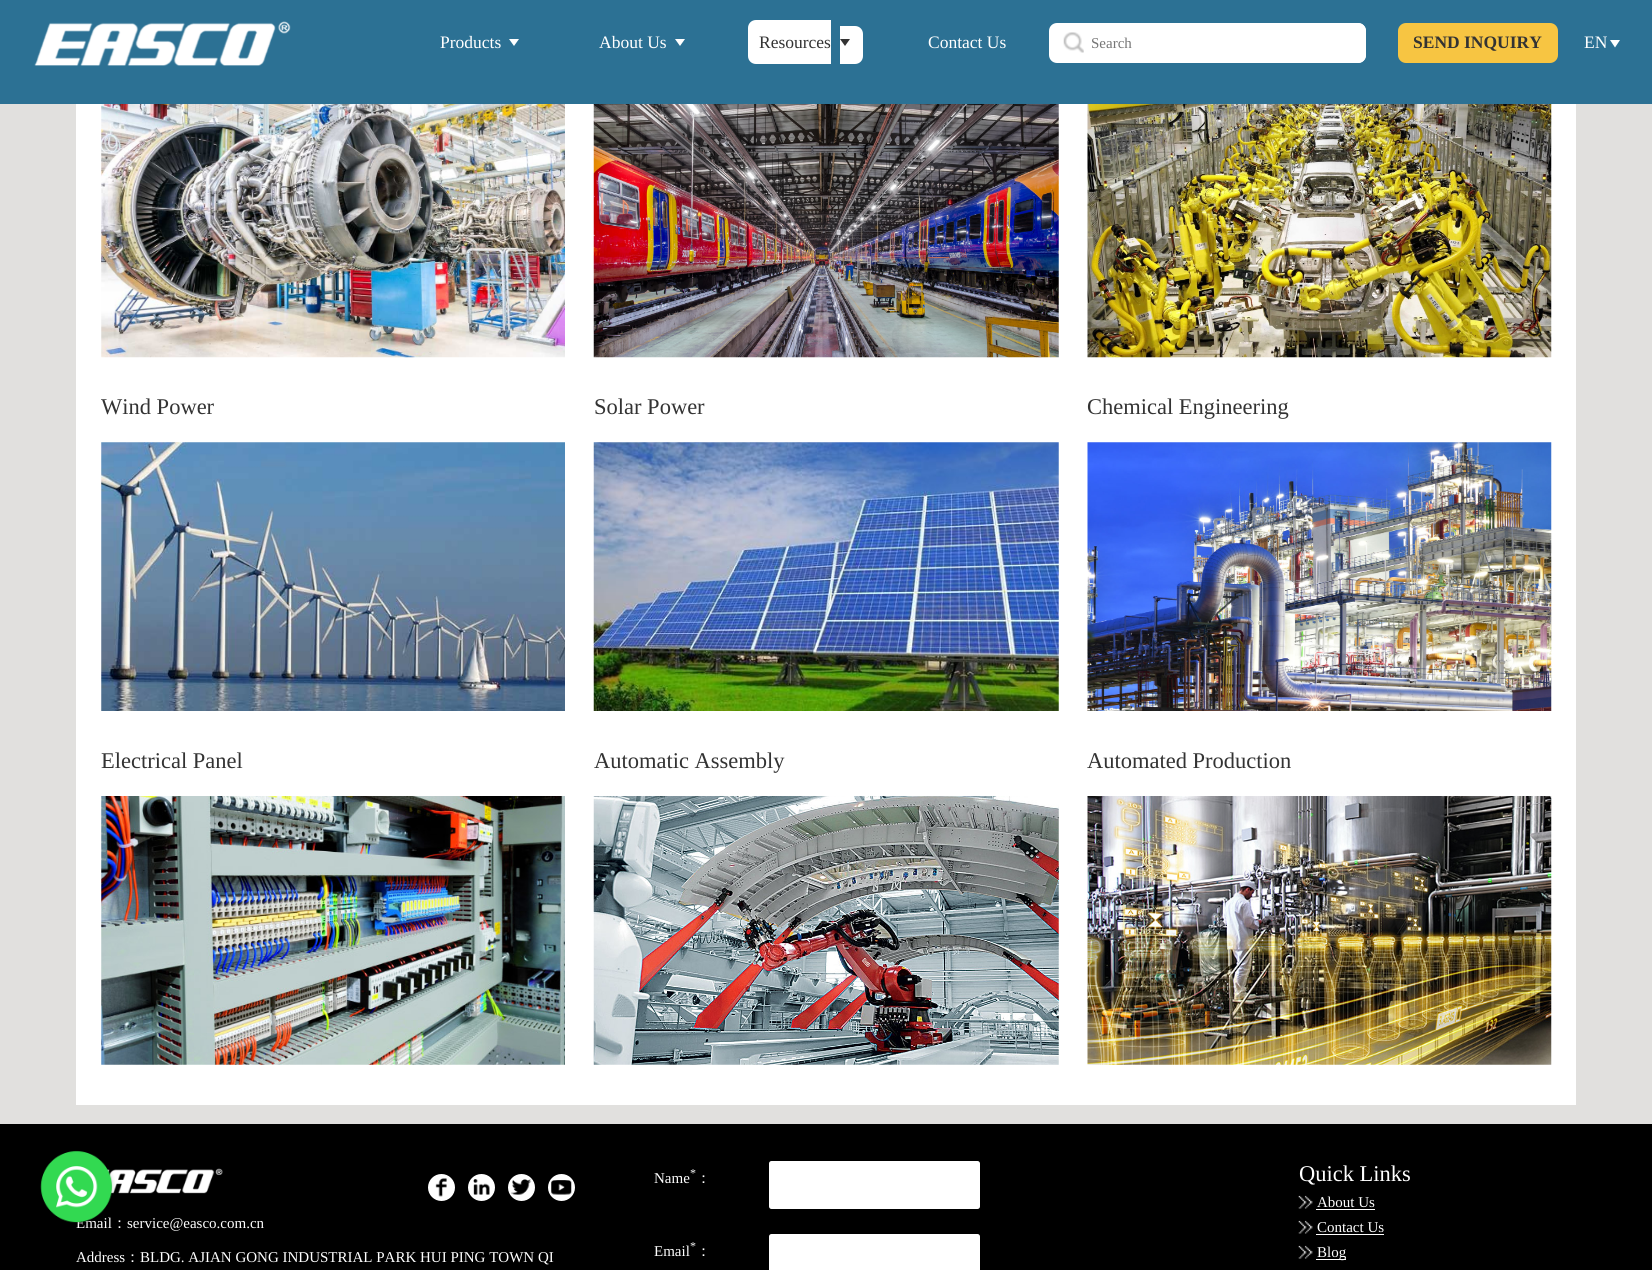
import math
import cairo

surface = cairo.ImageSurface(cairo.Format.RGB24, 1652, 1270)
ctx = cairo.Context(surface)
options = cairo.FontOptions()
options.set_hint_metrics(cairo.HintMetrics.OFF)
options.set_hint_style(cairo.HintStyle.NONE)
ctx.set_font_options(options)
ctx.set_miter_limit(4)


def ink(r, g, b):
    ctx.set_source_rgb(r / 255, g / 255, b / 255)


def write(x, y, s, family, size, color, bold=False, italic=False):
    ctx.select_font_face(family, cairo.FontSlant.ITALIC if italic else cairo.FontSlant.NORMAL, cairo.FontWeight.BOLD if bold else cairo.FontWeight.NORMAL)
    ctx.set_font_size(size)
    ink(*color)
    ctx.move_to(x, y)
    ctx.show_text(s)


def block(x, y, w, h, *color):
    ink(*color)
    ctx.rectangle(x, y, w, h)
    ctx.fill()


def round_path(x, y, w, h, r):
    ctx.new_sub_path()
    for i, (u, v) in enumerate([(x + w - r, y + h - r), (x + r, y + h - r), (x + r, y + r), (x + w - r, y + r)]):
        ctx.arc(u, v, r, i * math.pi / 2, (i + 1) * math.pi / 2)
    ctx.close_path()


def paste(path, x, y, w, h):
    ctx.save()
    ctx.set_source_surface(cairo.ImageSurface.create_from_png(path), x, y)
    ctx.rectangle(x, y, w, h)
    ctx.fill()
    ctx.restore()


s1 = dict(family="Liberation Serif", size=17.5, color=(255, 255, 255))
s2 = dict(family="Liberation Serif", size=17.5, color=(51, 51, 51))
s3 = dict(family="Liberation Serif", size=17.5, color=(51, 51, 51), bold=True)
s4 = dict(family="Liberation Serif", size=15, color=(117, 117, 117))
s5 = dict(family="Liberation Serif", size=22.5, color=(51, 51, 51))
s6 = dict(family="Liberation Serif", size=15, color=(255, 255, 255))
s7 = dict(family="WenQuanYi Zen Hei Medium", size=15, color=(255, 255, 255))
s8 = dict(family="Liberation Serif", size=12, color=(255, 255, 255))
s9 = dict(family="Liberation Serif", size=22.5, color=(255, 255, 255))

ink(225, 224, 222)
ctx.paint()
block(0, 0, 1652, 104, 44, 113, 148)
paste("pic1.png", 34, 21, 257, 45)
write(440, 48, "Products", **s1)
ctx.new_path()
ctx.move_to(509, 39)
ctx.line_to(519, 39)
ctx.line_to(514, 46)
ctx.close_path()
ctx.fill()
write(599, 48, "About Us", **s1)
ctx.new_path()
ctx.move_to(675, 39)
ctx.line_to(685, 39)
ctx.line_to(680, 46)
ctx.close_path()
ctx.fill()
ctx.new_path()
ctx.move_to(756, 20)
ctx.line_to(831, 20)
ctx.line_to(831, 64)
ctx.line_to(756, 64)
ctx.curve_to(751.5, 64, 748, 60.5, 748, 56)
ctx.line_to(748, 28)
ctx.curve_to(748, 23.5, 751.5, 20, 756, 20)
ctx.close_path()
ctx.fill()
ctx.new_path()
ctx.move_to(840, 26)
ctx.line_to(855, 26)
ctx.curve_to(859.5, 26, 863, 29.5, 863, 34)
ctx.line_to(863, 56)
ctx.curve_to(863, 60.5, 859.5, 64, 855, 64)
ctx.line_to(840, 64)
ctx.close_path()
ctx.fill()
write(759, 48, "Resources", **s2)
ctx.new_path()
ctx.move_to(840, 39)
ctx.line_to(850, 39)
ctx.line_to(845, 46)
ctx.close_path()
ctx.fill()
write(928, 48, "Contact Us", **s1)
ink(247, 197, 66)
round_path(1398, 23, 160, 40, 8)
ctx.fill()
write(1413, 48, "SEND INQUIRY", **s3)
write(1584, 48, "EN", **s1)
ctx.new_path()
ctx.move_to(1610, 40)
ctx.line_to(1620, 40)
ctx.line_to(1615, 47.5)
ctx.close_path()
ctx.fill()
round_path(1049, 23, 317, 40, 8)
ctx.fill()
paste("pic2.png", 1063, 32, 21, 21)
ctx.new_path()
ctx.move_to(1086, 23)
ctx.line_to(1358, 23)
ctx.curve_to(1362.5, 23, 1366, 26.5, 1366, 31)
ctx.line_to(1366, 55)
ctx.curve_to(1366, 59.5, 1362.5, 63, 1358, 63)
ctx.line_to(1086, 63)
ctx.close_path()
ctx.fill()
write(1091, 48, "Search", **s4)
block(76, 104, 1500, 1001, 255, 255, 255)
paste("pic3.png", 101, 104, 464, 254)
paste("pic4.png", 593, 104, 466, 254)
paste("pic5.png", 1087, 104, 465, 254)
write(101, 414, "Wind Power", **s5)
paste("pic6.png", 101, 442, 464, 269)
write(594, 414, "Solar Power", **s5)
paste("pic7.png", 593, 442, 466, 269)
write(1087, 414, "Chemical Engineering", **s5)
paste("pic8.png", 1087, 442, 465, 269)
write(101, 768, "Electrical Panel", **s5)
paste("pic9.png", 101, 796, 464, 269)
write(594, 768, "Automatic Assembly", **s5)
paste("pic10.png", 593, 796, 466, 269)
write(1087, 768, "Automated Production", **s5)
paste("pic11.png", 1087, 796, 465, 269)
block(0, 1124, 1652, 146, 0, 0, 0)
paste("pic13.png", 106, 1168, 117, 26)
write(76, 1228, "Email", **s6)
paste("pic12.png", 40, 1150, 75, 76)
ctx.arc(441.5, 1187.5, 13.5, 0, 2 * math.pi)
ctx.fill()
paste("pic14.png", 435, 1178, 12, 19)
ctx.arc(481.5, 1187.5, 13.5, 0, 2 * math.pi)
ctx.fill()
paste("pic15.png", 473, 1179, 17, 16)
ctx.arc(521.5, 1187.5, 13.5, 0, 2 * math.pi)
ctx.fill()
paste("pic16.png", 511, 1179, 21, 16)
ctx.arc(561.5, 1187.5, 13.5, 0, 2 * math.pi)
ctx.fill()
paste("pic17.png", 551, 1180, 21, 15)
write(112, 1228, "：", **s7)
write(127, 1228, "service@easco.com.cn", **s6)
write(76, 1262, "Address", **s6)
write(125, 1262, "：", **s7)
write(140, 1262, "BLDG. AJIAN GONG INDUSTRIAL PARK HUI PING TOWN QI", **s6)
write(690, 1177, "*", **s8)
write(654, 1183, "Name", **s6)
write(696, 1183, "：", **s7)
round_path(769, 1161, 211, 48, 2.5)
ctx.fill()
write(690, 1250, "*", **s8)
write(654, 1256, "Email", **s6)
write(696, 1256, "：", **s7)
round_path(769, 1234, 211, 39, 2.5)
ctx.fill()
write(1299, 1181, "Quick Links", **s9)
paste("pic18.png", 1298, 1195, 15, 14)
write(1317, 1207, "About Us", **s6)
block(1316, 1209, 59, 1, 255, 255, 255)
paste("pic18.png", 1298, 1220, 15, 14)
write(1317, 1232, "Contact Us", **s6)
block(1316, 1234, 68, 1, 255, 255, 255)
paste("pic19.png", 1298, 1245, 15, 14)
block(1316, 1259, 30, 1, 255, 255, 255)
write(1317, 1257, "Blog", **s6)
surface.write_to_png("screenshot.png")
